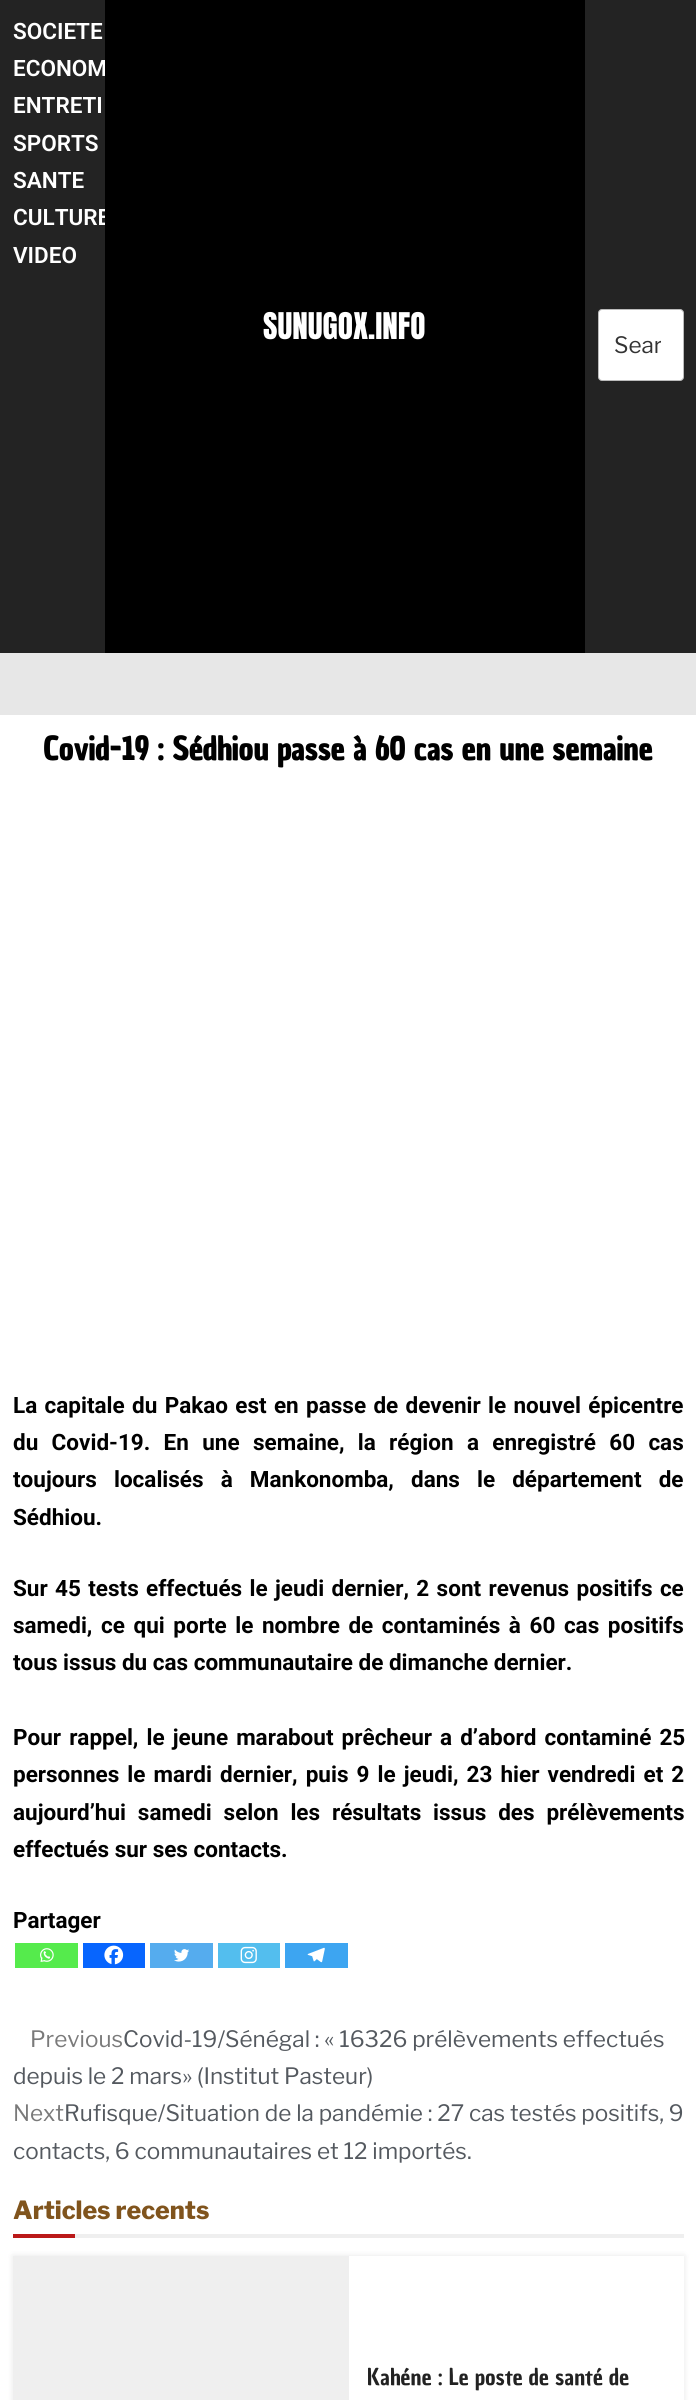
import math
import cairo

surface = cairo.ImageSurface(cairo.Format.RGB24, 696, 2400)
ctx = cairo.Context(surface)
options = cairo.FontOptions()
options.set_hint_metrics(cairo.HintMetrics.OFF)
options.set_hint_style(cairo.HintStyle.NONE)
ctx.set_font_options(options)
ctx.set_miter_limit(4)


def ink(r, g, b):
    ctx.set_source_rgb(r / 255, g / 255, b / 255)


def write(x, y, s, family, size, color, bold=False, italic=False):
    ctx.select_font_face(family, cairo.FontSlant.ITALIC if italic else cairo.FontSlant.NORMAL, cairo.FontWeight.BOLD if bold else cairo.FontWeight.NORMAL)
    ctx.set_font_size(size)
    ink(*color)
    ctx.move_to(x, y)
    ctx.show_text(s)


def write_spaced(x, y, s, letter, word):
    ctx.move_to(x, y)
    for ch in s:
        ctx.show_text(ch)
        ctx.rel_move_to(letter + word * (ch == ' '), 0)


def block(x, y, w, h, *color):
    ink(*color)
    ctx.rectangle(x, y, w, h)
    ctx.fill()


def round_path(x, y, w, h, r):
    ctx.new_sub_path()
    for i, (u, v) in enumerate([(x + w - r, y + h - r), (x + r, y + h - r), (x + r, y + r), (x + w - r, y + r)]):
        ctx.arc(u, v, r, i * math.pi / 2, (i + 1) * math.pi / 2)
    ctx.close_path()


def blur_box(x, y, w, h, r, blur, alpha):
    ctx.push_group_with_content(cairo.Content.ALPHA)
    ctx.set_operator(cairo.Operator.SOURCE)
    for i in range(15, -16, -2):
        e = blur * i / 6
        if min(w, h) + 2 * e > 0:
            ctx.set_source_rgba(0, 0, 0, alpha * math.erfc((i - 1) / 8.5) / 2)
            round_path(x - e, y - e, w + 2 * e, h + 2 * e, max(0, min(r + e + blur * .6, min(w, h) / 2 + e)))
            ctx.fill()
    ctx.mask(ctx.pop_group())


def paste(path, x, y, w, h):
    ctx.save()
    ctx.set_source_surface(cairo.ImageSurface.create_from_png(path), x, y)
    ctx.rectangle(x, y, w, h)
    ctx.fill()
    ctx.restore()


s1 = dict(family="Roboto SemiBold", size=22.5, color=(255, 255, 255))
s2 = dict(family="Anton", size=31.25, color=(255, 255, 255))
s3 = dict(family="Libre Franklin", size=22.5, color=(51, 51, 51))
s4 = dict(family="Chau Philomene One", size=31.25, color=(0, 0, 0), bold=True)
s5 = dict(family="Roboto", size=22.5, color=(0, 0, 0), bold=True)
s6 = dict(family="Libre Franklin", size=22.5, color=(122, 122, 122))
s7 = dict(family="Libre Franklin", size=22.5, color=(84, 89, 95))
s8 = dict(family="Libre Franklin ExtraBold", size=25, color=(128, 84, 29))
s9 = dict(family="Chau Philomene One", size=22.5, color=(34, 34, 34))

ink(255, 255, 255)
ctx.paint()
block(0, 0, 105, 653, 35, 35, 35)
write(13, 39, "SOCIETE", **s1)
write(13, 76, "ECONOM", **s1)
write(13, 113, "ENTRETI", **s1)
write(13, 151, "SPORTS", **s1)
write(13, 188, "SANTE", **s1)
write(13, 225, "CULTURE", **s1)
write(13, 263, "VIDEO", **s1)
block(105, 0, 480, 653, 0, 0, 0)
write(263, 339, "SUNUGOX.INFO", **s2)
block(585, 0, 111, 653, 35, 35, 35)
ink(255, 255, 255)
round_path(598.5, 309.5, 85, 71, 3.5)
ctx.fill_preserve()
ink(187, 187, 187)
ctx.set_line_width(1)
ctx.stroke()
ctx.save()
ctx.rectangle(614, 331, 47, 27)
ctx.clip()
write(614, 353, "Sear", **s3)
ctx.restore()
block(0, 653, 696, 62, 231, 231, 231)
write(43, 760, "Covid-19 : Sédhiou passe à 60 cas en une semaine", **s4)
ctx.select_font_face("Roboto", cairo.FontSlant.NORMAL, cairo.FontWeight.BOLD)
ctx.set_font_size(22.5)
write_spaced(13, 1413, "La capitale du Pakao est en passe de devenir le nouvel épicentre", 0, 1.75)
write_spaced(13, 1450, "du Covid-19. En une semaine, la région a enregistré 60 cas", 0, 7.75)
write_spaced(13, 1487, "toujours localisés à Mankonomba, dans le département de", 0, 11.5)
write(13, 1525, "Sédhiou.", **s5)
write_spaced(13, 1596, "Sur 45 tests effectués le jeudi dernier, 2 sont revenus positifs ce", 0, 1.75)
write_spaced(13, 1633, "samedi, ce qui porte le nombre de contaminés à 60 cas positifs", 0, 3)
write(13, 1670, "tous issus du cas communautaire de dimanche dernier.", **s5)
write_spaced(13, 1745, "Pour rappel, le jeune marabout prêcheur a d’abord contaminé 25", 0, 2.5)
write_spaced(13, 1782, "personnes le mardi dernier, puis 9 le jeudi, 23 hier vendredi et 2", 0, 2.5)
write_spaced(13, 1820, "aujourd’hui samedi selon les résultats issus des prélèvements", 0, 6.25)
write(13, 1857, "effectués sur ses contacts.", **s5)
write(13, 1928, "Partager", **s5)
block(15, 1943, 63, 25, 85, 235, 76)
paste("pic1.png", 40, 1948, 14, 14)
block(83, 1943, 62, 25, 7, 101, 254)
paste("pic2.png", 104, 1945, 20, 20)
block(150, 1943, 63, 25, 85, 172, 238)
paste("pic3.png", 174, 1949, 16, 13)
block(218, 1943, 62, 25, 83, 190, 238)
paste("pic4.png", 240, 1946, 17, 18)
block(285, 1943, 63, 25, 61, 165, 241)
paste("pic5.png", 307, 1947, 18, 16)
write(30, 2047, "Previous", **s6)
write(123, 2047, "Covid-19/Sénégal : « 16326 prélèvements effectués", **s7)
write(13, 2084, "depuis le 2 mars» (Institut Pasteur)", **s7)
write(13, 2121, "Next", **s6)
write(64, 2121, "Rufisque/Situation de la pandémie : 27 cas testés positifs, 9", **s7)
write(13, 2159, "contacts, 6 communautaires et 12 importés.", **s7)
write(13, 2219, "Articles recents", **s8)
block(13, 2234, 62, 4, 187, 25, 25)
block(75, 2234, 609, 4, 239, 239, 239)
ink(0, 0, 0)
blur_box(13, 2256, 671, 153, 0, 3, 0.1)
block(349, 2256, 335, 144, 255, 255, 255)
block(13, 2256, 336, 144, 239, 239, 239)
write(367, 2385, "Kahéne : Le poste de santé de", **s9)
surface.write_to_png("screenshot.png")
